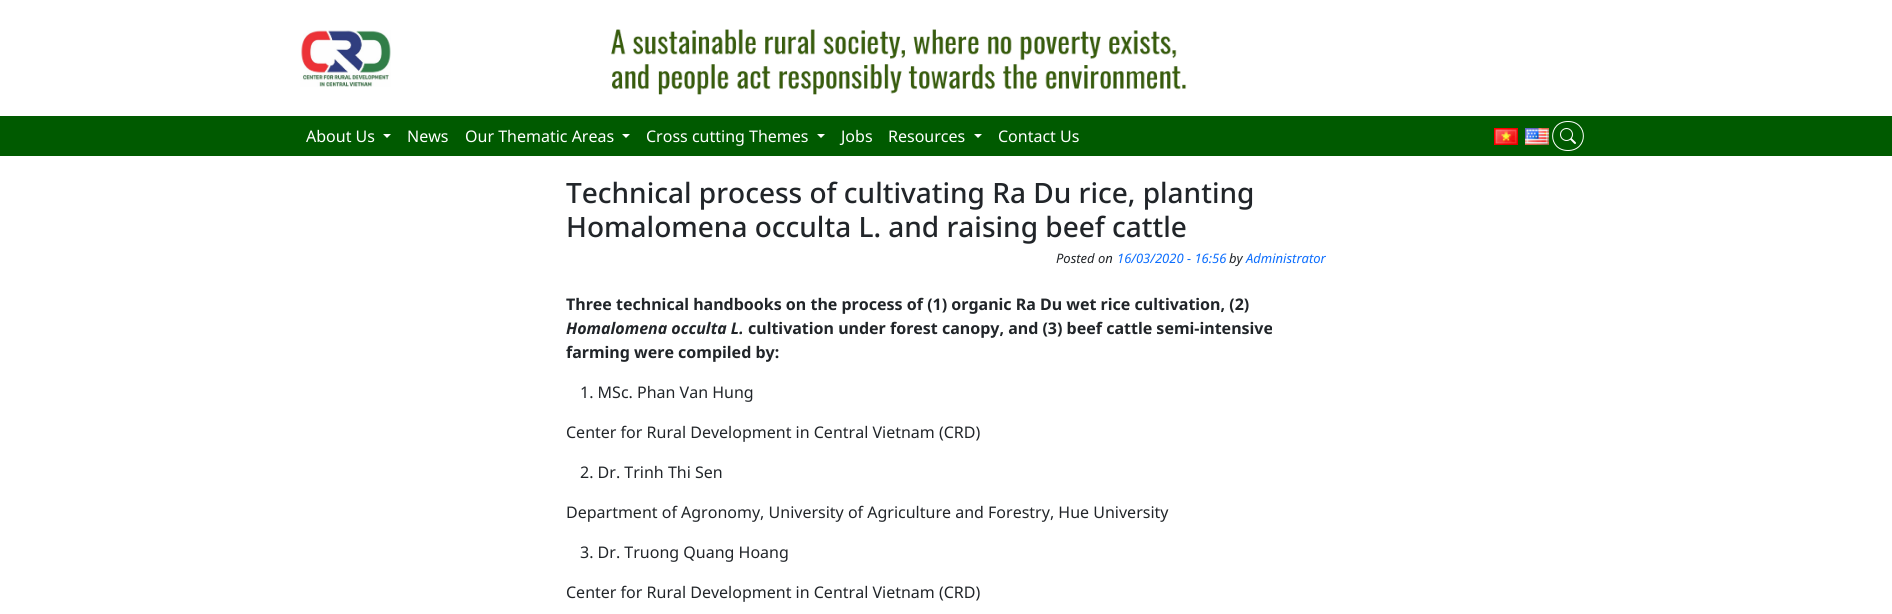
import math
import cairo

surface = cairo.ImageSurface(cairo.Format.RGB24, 1892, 614)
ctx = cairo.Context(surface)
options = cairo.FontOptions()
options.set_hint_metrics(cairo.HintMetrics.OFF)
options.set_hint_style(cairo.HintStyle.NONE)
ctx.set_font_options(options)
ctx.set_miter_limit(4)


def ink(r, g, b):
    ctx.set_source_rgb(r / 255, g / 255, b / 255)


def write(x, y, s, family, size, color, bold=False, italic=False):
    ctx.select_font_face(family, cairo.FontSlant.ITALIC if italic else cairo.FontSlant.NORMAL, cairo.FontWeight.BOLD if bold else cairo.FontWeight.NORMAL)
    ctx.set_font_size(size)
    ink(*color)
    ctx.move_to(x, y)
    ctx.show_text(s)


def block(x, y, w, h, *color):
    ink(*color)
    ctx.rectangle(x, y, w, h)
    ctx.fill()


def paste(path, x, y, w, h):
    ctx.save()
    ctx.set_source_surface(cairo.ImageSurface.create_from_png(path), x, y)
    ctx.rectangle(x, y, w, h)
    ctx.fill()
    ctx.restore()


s1 = dict(family="Noto Sans", size=16, color=(255, 255, 255))
s2 = dict(family="Noto Sans Medium", size=28, color=(33, 37, 41))
s3 = dict(family="Noto Sans", size=13, color=(33, 37, 41), italic=True)
s4 = dict(family="Noto Sans", size=13, color=(13, 110, 253), italic=True)
s5 = dict(family="Noto Sans", size=16, color=(33, 37, 41), bold=True)
s6 = dict(family="Noto Sans", size=16, color=(33, 37, 41), bold=True, italic=True)
s7 = dict(family="Noto Sans", size=16, color=(33, 37, 41))

ink(255, 255, 255)
ctx.paint()
paste("pic1.png", 300, 30, 91, 57)
paste("pic2.png", 611, 29, 576, 66)
block(0, 116, 1892, 40, 0, 90, 0)
write(306, 142, "About Us", **s1)
ctx.new_path()
ctx.move_to(383, 134)
ctx.line_to(391, 134)
ctx.line_to(387, 138)
ctx.close_path()
ctx.fill()
write(407, 142, "News", **s1)
write(465, 142, "Our Thematic Areas", **s1)
ctx.new_path()
ctx.move_to(622, 134)
ctx.line_to(630, 134)
ctx.line_to(626, 138)
ctx.close_path()
ctx.fill()
write(646, 142, "Cross cutting Themes", **s1)
ctx.new_path()
ctx.move_to(817, 134)
ctx.line_to(825, 134)
ctx.line_to(821, 138)
ctx.close_path()
ctx.fill()
write(841, 142, "Jobs", **s1)
write(888, 142, "Resources", **s1)
ctx.new_path()
ctx.move_to(974, 134)
ctx.line_to(982, 134)
ctx.line_to(978, 138)
ctx.close_path()
ctx.fill()
write(998, 142, "Contact Us", **s1)
paste("pic3.png", 1494, 128, 24, 17)
paste("pic4.png", 1525, 128, 24, 17)
ctx.new_path()
ctx.move_to(1568, 121.5)
ctx.curve_to(1588.5, 121.5, 1588.5, 150.5, 1568, 150.5)
ctx.curve_to(1547.5, 150.5, 1547.5, 121.5, 1568, 121.5)
ctx.close_path()
ctx.set_line_width(1)
ctx.stroke()
paste("pic5.png", 1560, 128, 16, 16)
write(566, 203, "Technical process of cultivating Ra Du rice, planting", **s2)
write(566, 237, "Homalomena occulta L. and raising beef cattle", **s2)
write(1056, 263, "Posted on", **s3)
write(1117, 263, "16/03/2020 - 16:56", **s4)
write(1229, 263, "by", **s3)
write(1246, 263, "Administrator", **s4)
write(566, 310, "Three technical handbooks on the process of (1) organic Ra Du wet rice cultivation, (2)", **s5)
write(566, 334, "Homalomena occulta L.", **s6)
write(748, 334, "cultivation under forest canopy, and (3) beef cattle semi-intensive", **s5)
write(566, 358, "farming were compiled by:", **s5)
write(580, 398, "1. MSc. Phan Van Hung", **s7)
write(566, 438, "Center for Rural Development in Central Vietnam (CRD)", **s7)
write(580, 478, "2. Dr. Trinh Thi Sen", **s7)
write(566, 518, "Department of Agronomy, University of Agriculture and Forestry, Hue University", **s7)
write(580, 558, "3. Dr. Truong Quang Hoang", **s7)
write(566, 598, "Center for Rural Development in Central Vietnam (CRD)", **s7)
surface.write_to_png("screenshot.png")
